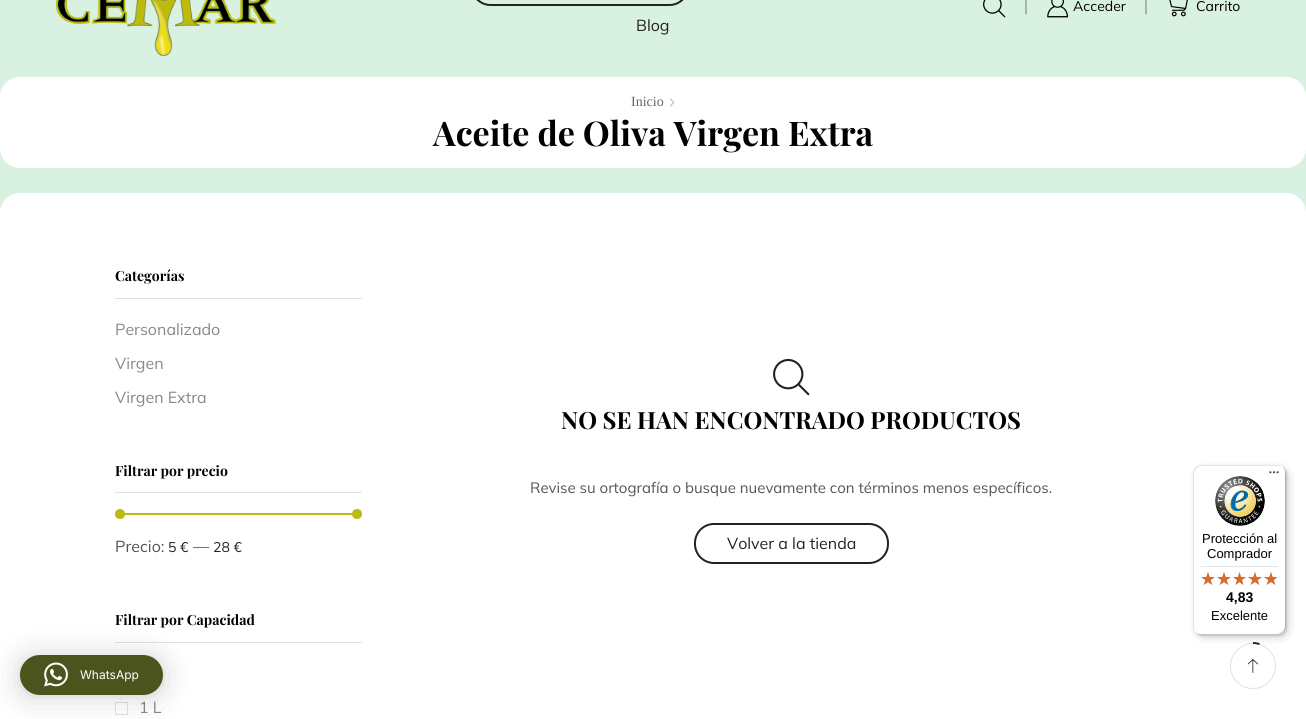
import math
import cairo

surface = cairo.ImageSurface(cairo.Format.RGB24, 1306, 719)
ctx = cairo.Context(surface)
options = cairo.FontOptions()
options.set_hint_metrics(cairo.HintMetrics.OFF)
options.set_hint_style(cairo.HintStyle.NONE)
ctx.set_font_options(options)
ctx.set_miter_limit(4)


def ink(r, g, b):
    ctx.set_source_rgb(r / 255, g / 255, b / 255)


def write(x, y, s, family, size, color, bold=False, italic=False):
    ctx.select_font_face(family, cairo.FontSlant.ITALIC if italic else cairo.FontSlant.NORMAL, cairo.FontWeight.BOLD if bold else cairo.FontWeight.NORMAL)
    ctx.set_font_size(size)
    ink(*color)
    ctx.move_to(x, y)
    ctx.show_text(s)


def block(x, y, w, h, *color):
    ink(*color)
    ctx.rectangle(x, y, w, h)
    ctx.fill()


def round_path(x, y, w, h, r):
    ctx.new_sub_path()
    for i, (u, v) in enumerate([(x + w - r, y + h - r), (x + r, y + h - r), (x + r, y + r), (x + w - r, y + r)]):
        ctx.arc(u, v, r, i * math.pi / 2, (i + 1) * math.pi / 2)
    ctx.close_path()


def blur_box(x, y, w, h, r, blur, alpha):
    ctx.push_group_with_content(cairo.Content.ALPHA)
    ctx.set_operator(cairo.Operator.SOURCE)
    for i in range(15, -16, -2):
        e = blur * i / 6
        if min(w, h) + 2 * e > 0:
            ctx.set_source_rgba(0, 0, 0, alpha * math.erfc((i - 1) / 8.5) / 2)
            round_path(x - e, y - e, w + 2 * e, h + 2 * e, max(0, min(r + e + blur * .6, min(w, h) / 2 + e)))
            ctx.fill()
    ctx.mask(ctx.pop_group())


def paste(path, x, y, w, h):
    ctx.save()
    ctx.set_source_surface(cairo.ImageSurface.create_from_png(path), x, y)
    ctx.rectangle(x, y, w, h)
    ctx.fill()
    ctx.restore()


s1 = dict(family="Liberation Serif", size=14, color=(109, 121, 112))
s2 = dict(family="Mulish", size=14, color=(0, 0, 0))
s3 = dict(family="Mulish", size=16, color=(34, 34, 34))
s4 = dict(family="Liberation Serif", size=14, color=(102, 102, 102))
s5 = dict(family="Playfair Display", size=34, color=(0, 0, 0), bold=True)
s6 = dict(family="Playfair Display", size=14, color=(0, 0, 0), bold=True)
s7 = dict(family="Mulish", size=16, color=(136, 136, 136))
s8 = dict(family="Mulish", size=16, color=(85, 85, 85))
s9 = dict(family="Mulish", size=14, color=(34, 34, 34))
s10 = dict(family="Playfair Display", size=23.75, color=(0, 0, 0), bold=True)
s11 = dict(family="Mulish", size=15, color=(85, 85, 85))
s12 = dict(family="Liberation Sans", size=13, color=(0, 0, 0))
s13 = dict(family="Liberation Sans", size=14, color=(0, 0, 0), bold=True)
s14 = dict(family="Inter", size=12, color=(255, 255, 255))

ink(217, 241, 224)
ctx.paint()
paste("pic1.png", 55, 0, 221, 57)
paste("pic2.png", 983, 0, 23, 18)
write(1021, 10, "│", **s1)
paste("pic3.png", 1047, 0, 22, 18)
write(1073, 11, "Acceder", **s2)
write(1141, 10, "│", **s1)
paste("pic4.png", 1169, 0, 19, 17)
write(1196, 11, "Carrito", **s2)
round_path(472, -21, 216, 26, 18.5)
ink(34, 34, 34)
ctx.stroke()
write(636, 31, "Blog", **s3)
ink(255, 255, 255)
round_path(0, 77, 1306, 91, 20)
ctx.fill()
write(631, 106, "Inicio", **s4)
paste("pic5.png", 670, 98, 4, 9)
write(433, 146, "Aceite de Oliva Virgen Extra", **s5)
ink(255, 255, 255)
round_path(0, 193, 1306, 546, 20)
ctx.fill()
block(115, 298, 247, 1, 225, 225, 225)
write(115, 281, "Categorías", **s6)
write(115, 335, "Personalizado", **s7)
write(115, 369, "Virgen", **s7)
write(115, 403, "Virgen Extra", **s7)
block(115, 492, 247, 1, 225, 225, 225)
write(115, 476, "Filtrar por precio", **s6)
block(115, 513, 247, 2, 187, 188, 15)
ctx.new_path()
ctx.arc(120, 514, 5, 0, 2 * math.pi)
ctx.fill()
ctx.arc(357, 514, 5, 0, 2 * math.pi)
ctx.fill()
write(115, 552, "Precio:", **s8)
write(168, 552, "5 €", **s9)
write(193, 552, "—", **s8)
write(213, 552, "28 €", **s9)
block(115, 642, 247, 1, 225, 225, 225)
write(115, 625, "Filtrar por Capacidad", **s6)
ctx.rectangle(115.5, 702.5, 12, 12)
ink(225, 225, 225)
ctx.set_line_width(1)
ctx.stroke()
write(139, 713, "1 L", **s7)
paste("pic6.png", 773, 358, 37, 38)
write(561, 429, "NO SE HAN ENCONTRADO PRODUCTOS", **s10)
write(530, 493, "Revise su ortografía o busque nuevamente con términos menos específicos.", **s11)
round_path(695, 524, 193, 39, 19)
ink(34, 34, 34)
ctx.set_line_width(2)
ctx.stroke()
write(727, 549, "Volver a la tienda", **s3)
ctx.new_path()
ctx.arc(1253, 666, 22.5, 0, 2 * math.pi)
ink(225, 225, 225)
ctx.set_line_width(1)
ctx.stroke()
ctx.new_path()
ctx.move_to(1253, 643)
ctx.curve_to(1255.5, 643, 1257.5, 643.5, 1259.5, 644)
ink(34, 34, 34)
ctx.set_line_width(1.9)
ctx.stroke()
paste("pic7.png", 1247, 659, 11, 14)
ink(0, 0, 0)
blur_box(1196, 468, 93, 170, 8, 4, 0.15)
blur_box(1194, 466, 93, 170, 8, 1, 0.15)
ink(255, 255, 255)
round_path(1193, 465, 93, 170, 8)
ctx.fill()
ink(229, 229, 229)
ctx.new_path()
ctx.move_to(1202, 466)
ctx.line_to(1279, 466)
ctx.curve_to(1281, 466, 1283, 467, 1285, 469)
ctx.curve_to(1283, 467, 1281, 465, 1278, 465)
ctx.line_to(1201, 465)
ctx.curve_to(1197, 465, 1193, 469, 1193, 473)
ctx.line_to(1193, 627)
ctx.curve_to(1193, 630, 1195, 632, 1197, 634)
ctx.curve_to(1195, 632, 1194, 630, 1194, 628)
ctx.line_to(1194, 474)
ctx.curve_to(1194, 470, 1198, 466, 1202, 466)
ctx.close_path()
ctx.fill()
ink(204, 204, 204)
ctx.new_path()
ctx.move_to(1194, 631)
ctx.curve_to(1196, 633, 1198, 635, 1201, 635)
ctx.line_to(1278, 635)
ctx.curve_to(1282, 635, 1286, 631, 1286, 627)
ctx.line_to(1286, 473)
ctx.curve_to(1286, 470, 1284, 468, 1282, 466)
ctx.curve_to(1284, 468, 1285, 470, 1285, 472)
ctx.line_to(1285, 626)
ctx.curve_to(1285, 630, 1281, 634, 1277, 634)
ctx.line_to(1200, 634)
ctx.curve_to(1198, 634, 1196, 633, 1194, 631)
ctx.close_path()
ctx.fill()
ctx.set_source_rgba(0.196, 0.196, 0.196, 0.2)
ctx.new_path()
ctx.move_to(1195, 632)
ctx.curve_to(1196, 634, 1199, 635, 1201, 635)
ctx.line_to(1278, 635)
ctx.curve_to(1282, 635, 1286, 631, 1286, 627)
ctx.line_to(1286, 473)
ctx.curve_to(1286, 471, 1285, 468, 1283, 467)
ctx.curve_to(1284, 468, 1285, 470, 1285, 472)
ctx.line_to(1285, 626)
ctx.curve_to(1285, 631, 1282, 634, 1277, 634)
ctx.line_to(1200, 634)
ctx.curve_to(1198, 634, 1196, 633, 1195, 632)
ctx.close_path()
ctx.fill()
paste("pic8.png", 1269, 471, 10, 3)
ctx.set_source_rgba(1, 1, 1, 0.3)
ctx.new_path()
ctx.move_to(1195, 632)
ctx.curve_to(1196, 634, 1199, 635, 1201, 635)
ctx.line_to(1278, 635)
ctx.curve_to(1282, 635, 1286, 631, 1286, 627)
ctx.line_to(1286, 626)
ctx.curve_to(1286, 631, 1282, 634, 1278, 634)
ctx.line_to(1200, 634)
ctx.curve_to(1198, 634, 1196, 633, 1195, 632)
ctx.close_path()
ctx.fill()
paste("pic9.png", 1215, 476, 50, 50)
write(1202, 543, "Protección al", **s12)
write(1207, 558, "Comprador", **s12)
block(1201, 566, 77, 1, 229, 229, 229)
paste("pic10.png", 1201, 572, 14, 13)
paste("pic10.png", 1217, 572, 14, 13)
paste("pic11.png", 1233, 572, 13, 13)
paste("pic10.png", 1248, 572, 14, 13)
paste("pic10.png", 1264, 572, 14, 13)
paste("pic12.png", 1201, 572, 14, 13)
paste("pic12.png", 1217, 572, 14, 13)
paste("pic13.png", 1233, 572, 13, 13)
paste("pic12.png", 1248, 572, 14, 13)
paste("pic14.png", 1264, 572, 12, 13)
write(1226, 602, "4,83", **s13)
write(1211, 620, "Excelente", **s12)
ink(0, 0, 0)
blur_box(20, 657, 143, 40, 20, 16, 0.16)
blur_box(20, 656, 143, 40, 20, 3, 0.06)
ink(76, 84, 29)
round_path(20, 655, 143, 40, 20)
ctx.fill()
paste("pic15.png", 44, 662, 24, 25)
write(80, 679, "WhatsApp", **s14)
surface.write_to_png("screenshot.png")
